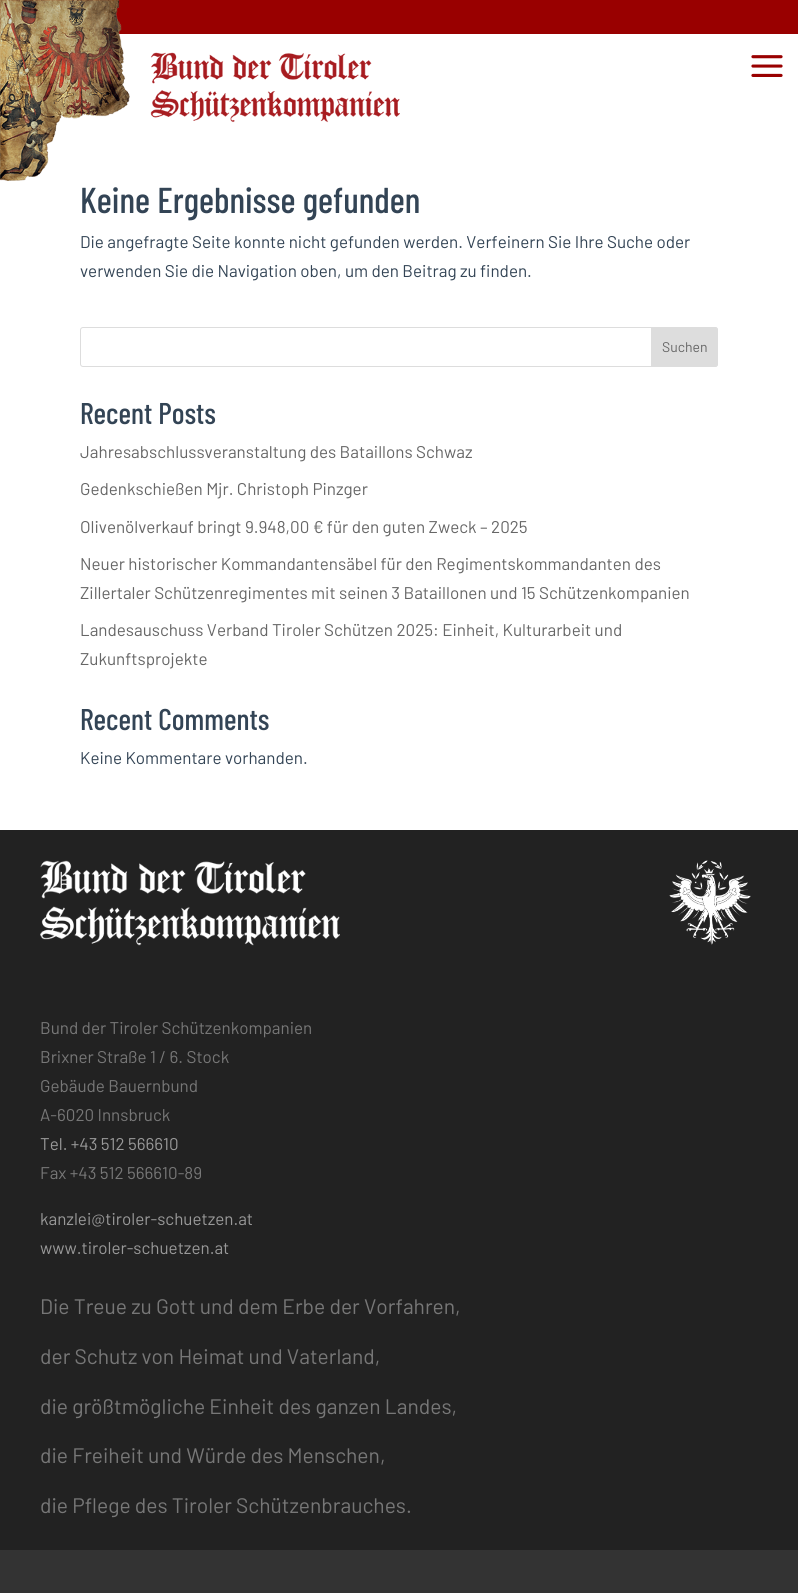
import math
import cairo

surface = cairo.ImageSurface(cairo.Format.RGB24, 798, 1593)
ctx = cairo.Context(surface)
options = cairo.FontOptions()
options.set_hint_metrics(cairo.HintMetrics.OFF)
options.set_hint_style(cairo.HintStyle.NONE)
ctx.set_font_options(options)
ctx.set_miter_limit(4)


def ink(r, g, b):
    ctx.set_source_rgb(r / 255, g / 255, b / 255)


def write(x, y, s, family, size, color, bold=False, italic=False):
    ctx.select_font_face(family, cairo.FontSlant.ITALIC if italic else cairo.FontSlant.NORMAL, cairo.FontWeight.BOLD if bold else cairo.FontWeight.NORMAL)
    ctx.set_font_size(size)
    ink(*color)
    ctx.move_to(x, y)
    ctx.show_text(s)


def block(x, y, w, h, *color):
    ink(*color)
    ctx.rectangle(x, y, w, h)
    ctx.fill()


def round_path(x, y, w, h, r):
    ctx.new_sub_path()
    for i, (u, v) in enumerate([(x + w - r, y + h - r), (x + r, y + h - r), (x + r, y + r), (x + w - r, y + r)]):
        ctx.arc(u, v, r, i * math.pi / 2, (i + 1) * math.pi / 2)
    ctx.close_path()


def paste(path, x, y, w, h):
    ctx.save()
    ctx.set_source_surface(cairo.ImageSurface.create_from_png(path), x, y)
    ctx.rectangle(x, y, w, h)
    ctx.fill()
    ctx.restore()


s1 = dict(family="Barlow Condensed Medium", size=36, color=(51, 68, 85))
s2 = dict(family="Barlow", size=17, color=(51, 68, 85))
s3 = dict(family="Barlow", size=14, color=(102, 102, 102))
s4 = dict(family="Barlow Condensed Medium", size=30, color=(51, 68, 85))
s5 = dict(family="Barlow", size=17, color=(102, 102, 102))
s6 = dict(family="Barlow", size=17, color=(119, 119, 119))
s7 = dict(family="Barlow", size=17, color=(153, 153, 153))
s8 = dict(family="Barlow", size=21, color=(119, 119, 119))

ink(255, 255, 255)
ctx.paint()
block(0, 0, 798, 34, 153, 0, 0)
paste("pic1.png", 0, 0, 400, 181)
paste("pic2.png", 751, 55, 32, 22)
write(80, 213, "Keine Ergebnisse gefunden", **s1)
write(80, 248, "Die angefragte Seite konnte nicht gefunden werden. Verfeinern Sie Ihre Suche oder", **s2)
write(80, 277, "verwenden Sie die Navigation oben, um den Beitrag zu finden.", **s2)
round_path(80.5, 327.5, 637, 39, 2.5)
ink(221, 221, 221)
ctx.set_line_width(1)
ctx.stroke()
ctx.new_path()
ctx.move_to(651.5, 327.5)
ctx.line_to(715, 327.5)
ctx.curve_to(716.5, 327.5, 717.5, 328.5, 717.5, 330)
ctx.line_to(717.5, 364)
ctx.curve_to(717.5, 365.5, 716.5, 366.5, 715, 366.5)
ctx.line_to(651.5, 366.5)
ctx.close_path()
ctx.fill_preserve()
ctx.stroke()
write(662, 352, "Suchen", **s3)
write(80, 424, "Recent Posts", **s4)
write(80, 458, "Jahresabschlussveranstaltung des Bataillons Schwaz", **s5)
write(80, 495, "Gedenkschießen Mjr. Christoph Pinzger", **s5)
write(80, 533, "Olivenölverkauf bringt 9.948,00 € für den guten Zweck – 2025", **s5)
write(80, 570, "Neuer historischer Kommandantensäbel für den Regimentskommandanten des", **s5)
write(80, 599, "Zillertaler Schützenregimentes mit seinen 3 Bataillonen und 15 Schützenkompanien", **s5)
write(80, 636, "Landesauschuss Verband Tiroler Schützen 2025: Einheit, Kulturarbeit und", **s5)
write(80, 665, "Zukunftsprojekte", **s5)
write(80, 730, "Recent Comments", **s4)
write(80, 764, "Keine Kommentare vorhanden.", **s2)
block(0, 830, 798, 720, 34, 34, 34)
paste("pic3.png", 40, 860, 300, 86)
paste("pic4.png", 669, 860, 82, 85)
write(40, 1034, "Bund der Tiroler Schützenkompanien", **s6)
write(40, 1063, "Brixner Straße 1 / 6. Stock", **s6)
write(40, 1092, "Gebäude Bauernbund", **s6)
write(40, 1121, "A-6020 Innsbruck", **s6)
write(40, 1150, "Tel. +43 512 566610", **s7)
write(40, 1179, "Fax +43 512 566610-89", **s6)
write(40, 1225, "kanzlei@tiroler-schuetzen.at", **s7)
write(40, 1254, "www.tiroler-schuetzen.at", **s7)
write(40, 1314, "Die Treue zu Gott und dem Erbe der Vorfahren,", **s8)
write(40, 1364, "der Schutz von Heimat und Vaterland,", **s8)
write(40, 1414, "die größtmögliche Einheit des ganzen Landes,", **s8)
write(40, 1463, "die Freiheit und Würde des Menschen,", **s8)
write(40, 1513, "die Pflege des Tiroler Schützenbrauches.", **s8)
block(0, 1550, 798, 43, 51, 51, 51)
surface.write_to_png("screenshot.png")
